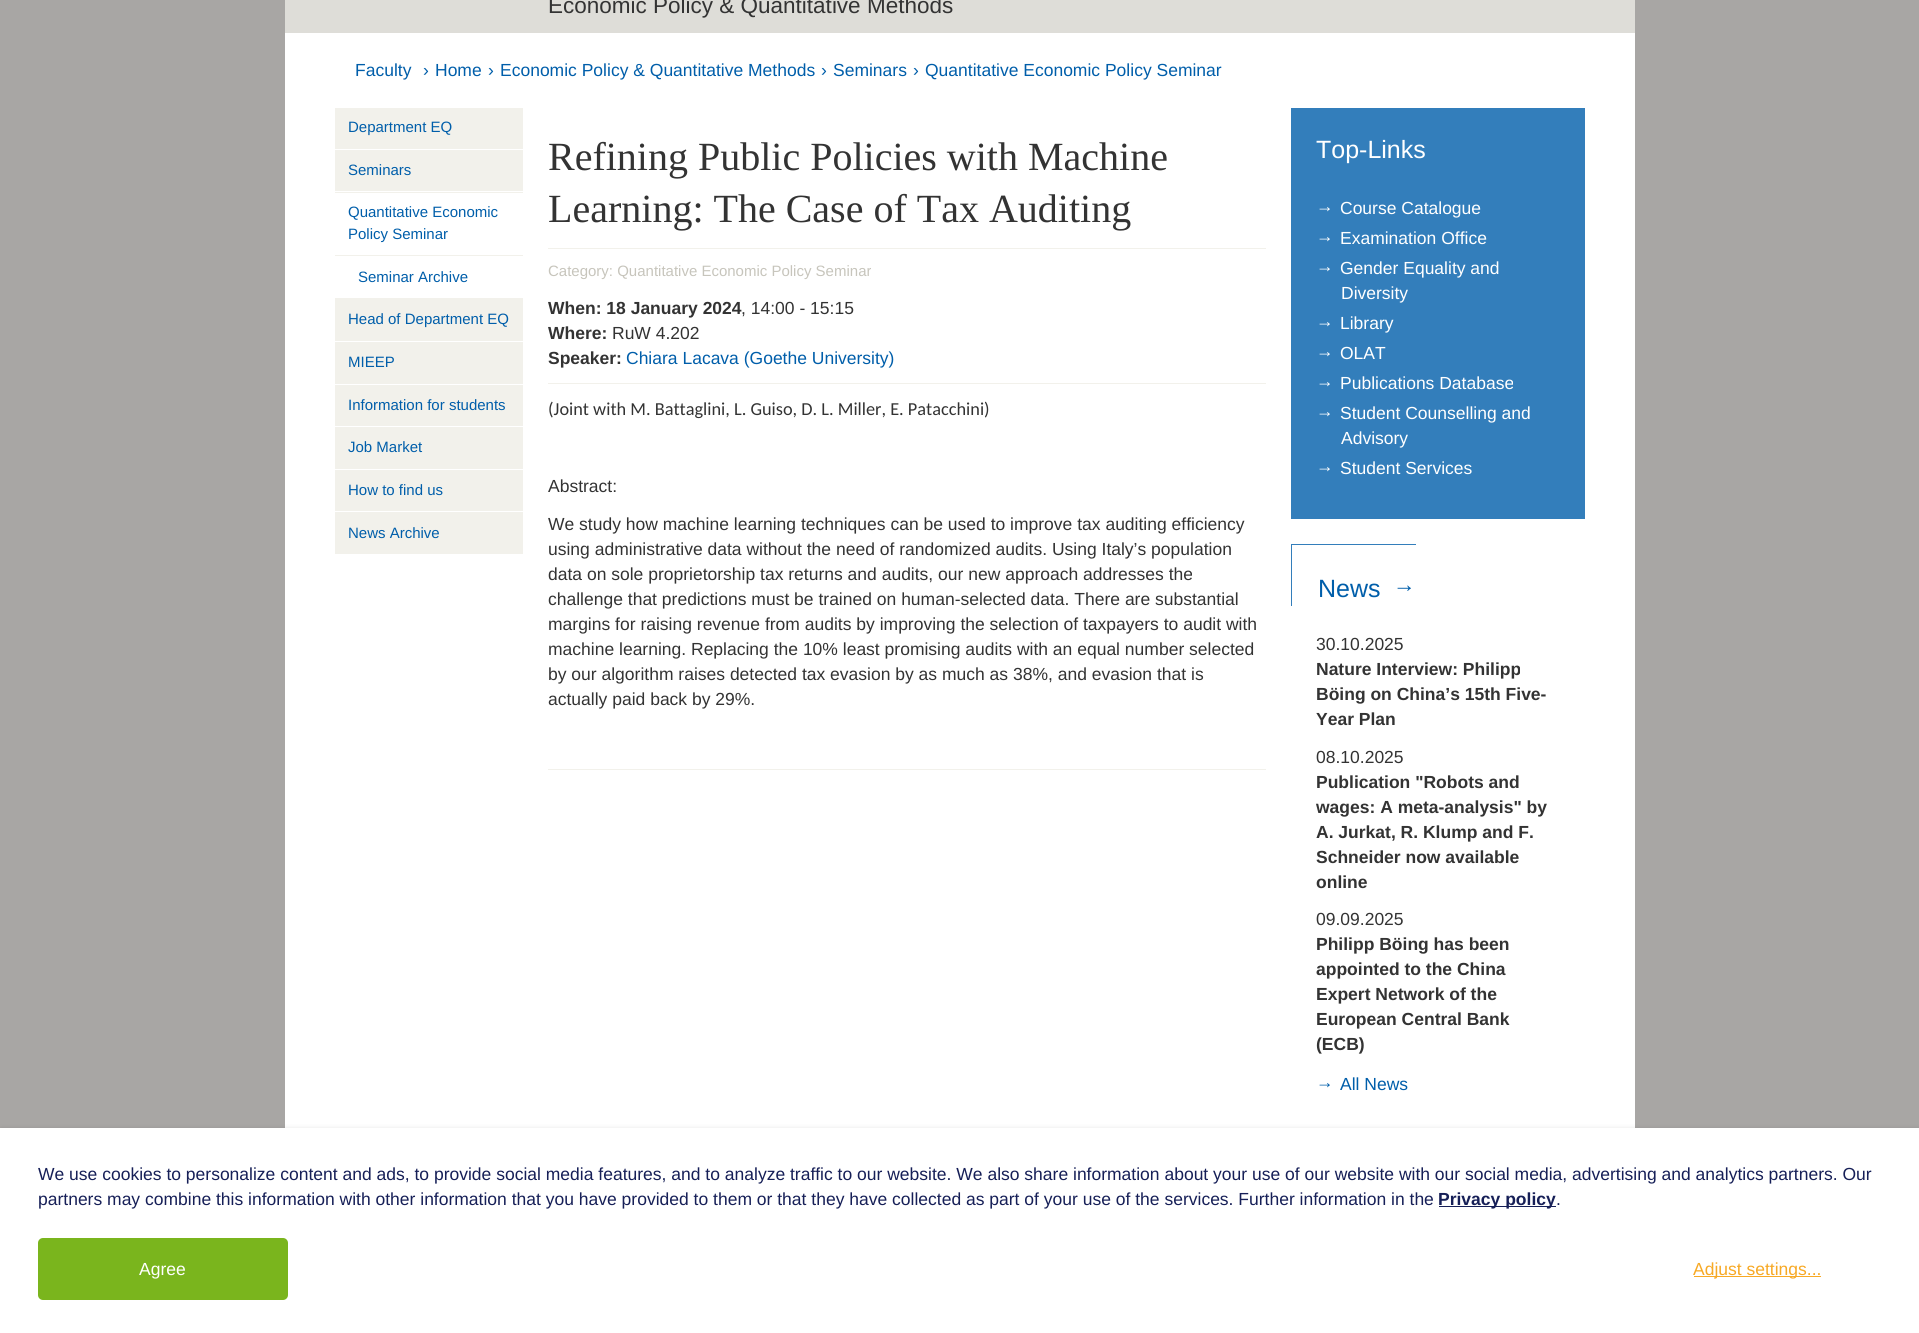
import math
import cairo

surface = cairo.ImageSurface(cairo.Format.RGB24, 1919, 1333)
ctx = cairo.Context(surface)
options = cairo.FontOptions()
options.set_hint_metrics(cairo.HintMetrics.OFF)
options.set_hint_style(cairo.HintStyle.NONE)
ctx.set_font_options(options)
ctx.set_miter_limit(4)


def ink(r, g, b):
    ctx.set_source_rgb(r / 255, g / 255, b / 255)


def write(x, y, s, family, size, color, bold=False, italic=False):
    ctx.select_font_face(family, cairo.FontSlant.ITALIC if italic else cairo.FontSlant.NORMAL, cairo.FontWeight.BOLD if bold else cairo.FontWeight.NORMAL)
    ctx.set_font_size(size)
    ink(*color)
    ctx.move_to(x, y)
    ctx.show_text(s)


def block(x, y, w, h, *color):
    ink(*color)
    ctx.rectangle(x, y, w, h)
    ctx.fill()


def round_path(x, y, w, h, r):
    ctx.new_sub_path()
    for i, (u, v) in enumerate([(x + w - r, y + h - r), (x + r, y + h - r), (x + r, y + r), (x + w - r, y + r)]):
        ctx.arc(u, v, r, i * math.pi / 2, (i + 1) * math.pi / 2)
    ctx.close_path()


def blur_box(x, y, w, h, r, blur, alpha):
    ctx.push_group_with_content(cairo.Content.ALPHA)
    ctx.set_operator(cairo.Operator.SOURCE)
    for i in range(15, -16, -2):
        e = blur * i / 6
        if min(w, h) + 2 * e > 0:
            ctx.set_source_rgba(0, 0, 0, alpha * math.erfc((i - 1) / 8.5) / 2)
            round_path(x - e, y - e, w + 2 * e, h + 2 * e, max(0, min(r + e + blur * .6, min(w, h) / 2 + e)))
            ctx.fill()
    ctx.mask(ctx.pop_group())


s1 = dict(family="Liberation Sans", size=22.5, color=(51, 51, 51))
s2 = dict(family="Liberation Sans", size=17.5, color=(0, 94, 170))
s3 = dict(family="Liberation Sans", size=15, color=(0, 94, 170))
s4 = dict(family="Liberation Serif", size=40, color=(51, 51, 51))
s5 = dict(family="Liberation Sans", size=15, color=(199, 197, 188))
s6 = dict(family="Liberation Sans", size=17.5, color=(51, 51, 51), bold=True)
s7 = dict(family="Liberation Sans", size=17.5, color=(51, 51, 51))
s8 = dict(family="Carlito", size=18.3, color=(51, 51, 51))
s9 = dict(family="Liberation Sans", size=25, color=(255, 255, 255))
s10 = dict(family="Liberation Sans", size=17.5, color=(255, 255, 255))
s11 = dict(family="Liberation Sans", size=25, color=(0, 94, 170))
s12 = dict(family="Liberation Sans", size=22.5, color=(0, 94, 170))
s13 = dict(family="Liberation Sans", size=17.5, color=(22, 31, 87))
s14 = dict(family="Liberation Sans", size=17.5, color=(22, 31, 87), bold=True)
s15 = dict(family="Liberation Sans", size=17.5, color=(247, 169, 37))

ink(168, 166, 164)
ctx.paint()
block(285, 0, 1350, 33, 222, 221, 216)
write(548, 13, "Economic Policy & Quantitative Methods", **s1)
block(285, 33, 1350, 1095, 255, 255, 255)
write(355, 76, "Faculty", **s2)
write(423, 76, "›", **s2)
write(435, 76, "Home", **s2)
write(488, 76, "›", **s2)
write(500, 76, "Economic Policy & Quantitative Methods", **s2)
write(821, 76, "›", **s2)
write(833, 76, "Seminars", **s2)
write(913, 76, "›", **s2)
write(925, 76, "Quantitative Economic Policy Seminar", **s2)
block(335, 108, 188, 41, 242, 241, 235)
write(348, 132, "Department EQ", **s3)
block(335, 150, 188, 43, 242, 241, 235)
block(335, 191, 188, 1, 255, 255, 255)
write(348, 175, "Seminars", **s3)
block(335, 255, 188, 1, 242, 241, 235)
write(348, 217, "Quantitative Economic", **s3)
write(348, 239, "Policy Seminar", **s3)
block(335, 298, 188, 86, 242, 241, 235)
write(358, 282, "Seminar Archive", **s3)
block(335, 341, 188, 1, 255, 255, 255)
write(348, 324, "Head of Department EQ", **s3)
write(348, 367, "MIEEP", **s3)
block(335, 385, 188, 84, 242, 241, 235)
block(335, 426, 188, 1, 255, 255, 255)
write(348, 410, "Information for students", **s3)
write(348, 452, "Job Market", **s3)
block(335, 470, 188, 84, 242, 241, 235)
block(335, 511, 188, 1, 255, 255, 255)
write(348, 495, "How to find us", **s3)
write(348, 538, "News Archive", **s3)
block(548, 248, 718, 1, 242, 241, 235)
write(548, 170, "Refining Public Policies with Machine", **s4)
write(548, 222, "Learning: The Case of Tax Auditing", **s4)
write(548, 276, "Category: Quantitative Economic Policy Seminar", **s5)
write(548, 314, "When: 18 January 2024", **s6)
write(741, 314, ", 14:00 - 15:15", **s7)
write(548, 339, "Where:", **s6)
write(612, 339, "RuW 4.202", **s7)
write(548, 364, "Speaker:", **s6)
write(626, 364, "Chiara Lacava (Goethe University)", **s2)
block(548, 383, 718, 1, 242, 241, 235)
write(548, 415, "(Joint with M. Battaglini, L. Guiso, D. L. Miller, E. Patacchini)", **s8)
write(548, 492, "Abstract:", **s7)
write(548, 530, "We study how machine learning techniques can be used to improve tax auditing efficiency", **s7)
write(548, 555, "using administrative data without the need of randomized audits. Using Italy’s population", **s7)
write(548, 580, "data on sole proprietorship tax returns and audits, our new approach addresses the", **s7)
write(548, 605, "challenge that predictions must be trained on human-selected data. There are substantial", **s7)
write(548, 630, "margins for raising revenue from audits by improving the selection of taxpayers to audit with", **s7)
write(548, 655, "machine learning. Replacing the 10% least promising audits with an equal number selected", **s7)
write(548, 680, "by our algorithm raises detected tax evasion by as much as 38%, and evasion that is", **s7)
write(548, 705, "actually paid back by 29%.", **s7)
block(548, 769, 718, 1, 242, 241, 235)
block(1291, 108, 294, 411, 51, 126, 187)
write(1316, 158, "Top-Links", **s9)
write(1316, 212, "→", **s10)
write(1340, 214, "Course Catalogue", **s10)
write(1316, 242, "→", **s10)
write(1340, 244, "Examination Office", **s10)
write(1316, 272, "→", **s10)
write(1340, 274, "Gender Equality and", **s10)
write(1341, 299, "Diversity", **s10)
write(1316, 327, "→", **s10)
write(1340, 329, "Library", **s10)
write(1316, 357, "→", **s10)
write(1340, 359, "OLAT", **s10)
write(1316, 387, "→", **s10)
write(1340, 389, "Publications Database", **s10)
write(1316, 417, "→", **s10)
write(1340, 419, "Student Counselling and", **s10)
write(1341, 444, "Advisory", **s10)
write(1316, 472, "→", **s10)
write(1340, 474, "Student Services", **s10)
block(1291, 544, 125, 1, 51, 126, 187)
block(1291, 544, 1, 62, 51, 126, 187)
write(1318, 597, "News", **s11)
write(1393, 592, "→", **s12)
write(1316, 650, "30.10.2025", **s7)
write(1316, 675, "Nature Interview: Philipp", **s6)
write(1316, 700, "Böing on China’s 15th Five-", **s6)
write(1316, 725, "Year Plan", **s6)
write(1316, 763, "08.10.2025", **s7)
write(1316, 788, "Publication \"Robots and", **s6)
write(1316, 813, "wages: A meta-analysis\" by", **s6)
write(1316, 838, "A. Jurkat, R. Klump and F.", **s6)
write(1316, 863, "Schneider now available", **s6)
write(1316, 888, "online", **s6)
write(1316, 925, "09.09.2025", **s7)
write(1316, 950, "Philipp Böing has been", **s6)
write(1316, 975, "appointed to the China", **s6)
write(1316, 1000, "Expert Network of the", **s6)
write(1316, 1025, "European Central Bank", **s6)
write(1316, 1050, "(ECB)", **s6)
write(1316, 1088, "→", **s2)
write(1340, 1090, "All News", **s2)
ink(0, 0, 0)
blur_box(1, 1130, 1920, 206, 0, 3, 0.2)
block(0, 1128, 1919, 205, 255, 255, 255)
write(38, 1180, "We use cookies to personalize content and ads, to provide social media features, and to analyze traffic to our website. We also share information about your use of our website with our social media, advertising and analytics partners. Our", **s13)
write(38, 1205, "partners may combine this information with other information that you have provided to them or that they have collected as part of your use of the services. Further information in the", **s13)
block(1439, 1206, 117, 1, 22, 31, 87)
write(1438, 1205, "Privacy policy", **s14)
write(1556, 1205, ".", **s13)
ink(122, 181, 29)
round_path(38, 1238, 250, 62, 5)
ctx.fill()
write(139, 1275, "Agree", **s10)
block(1694, 1276, 127, 1, 247, 169, 37)
write(1693, 1275, "Adjust settings...", **s15)
surface.write_to_png("screenshot.png")
